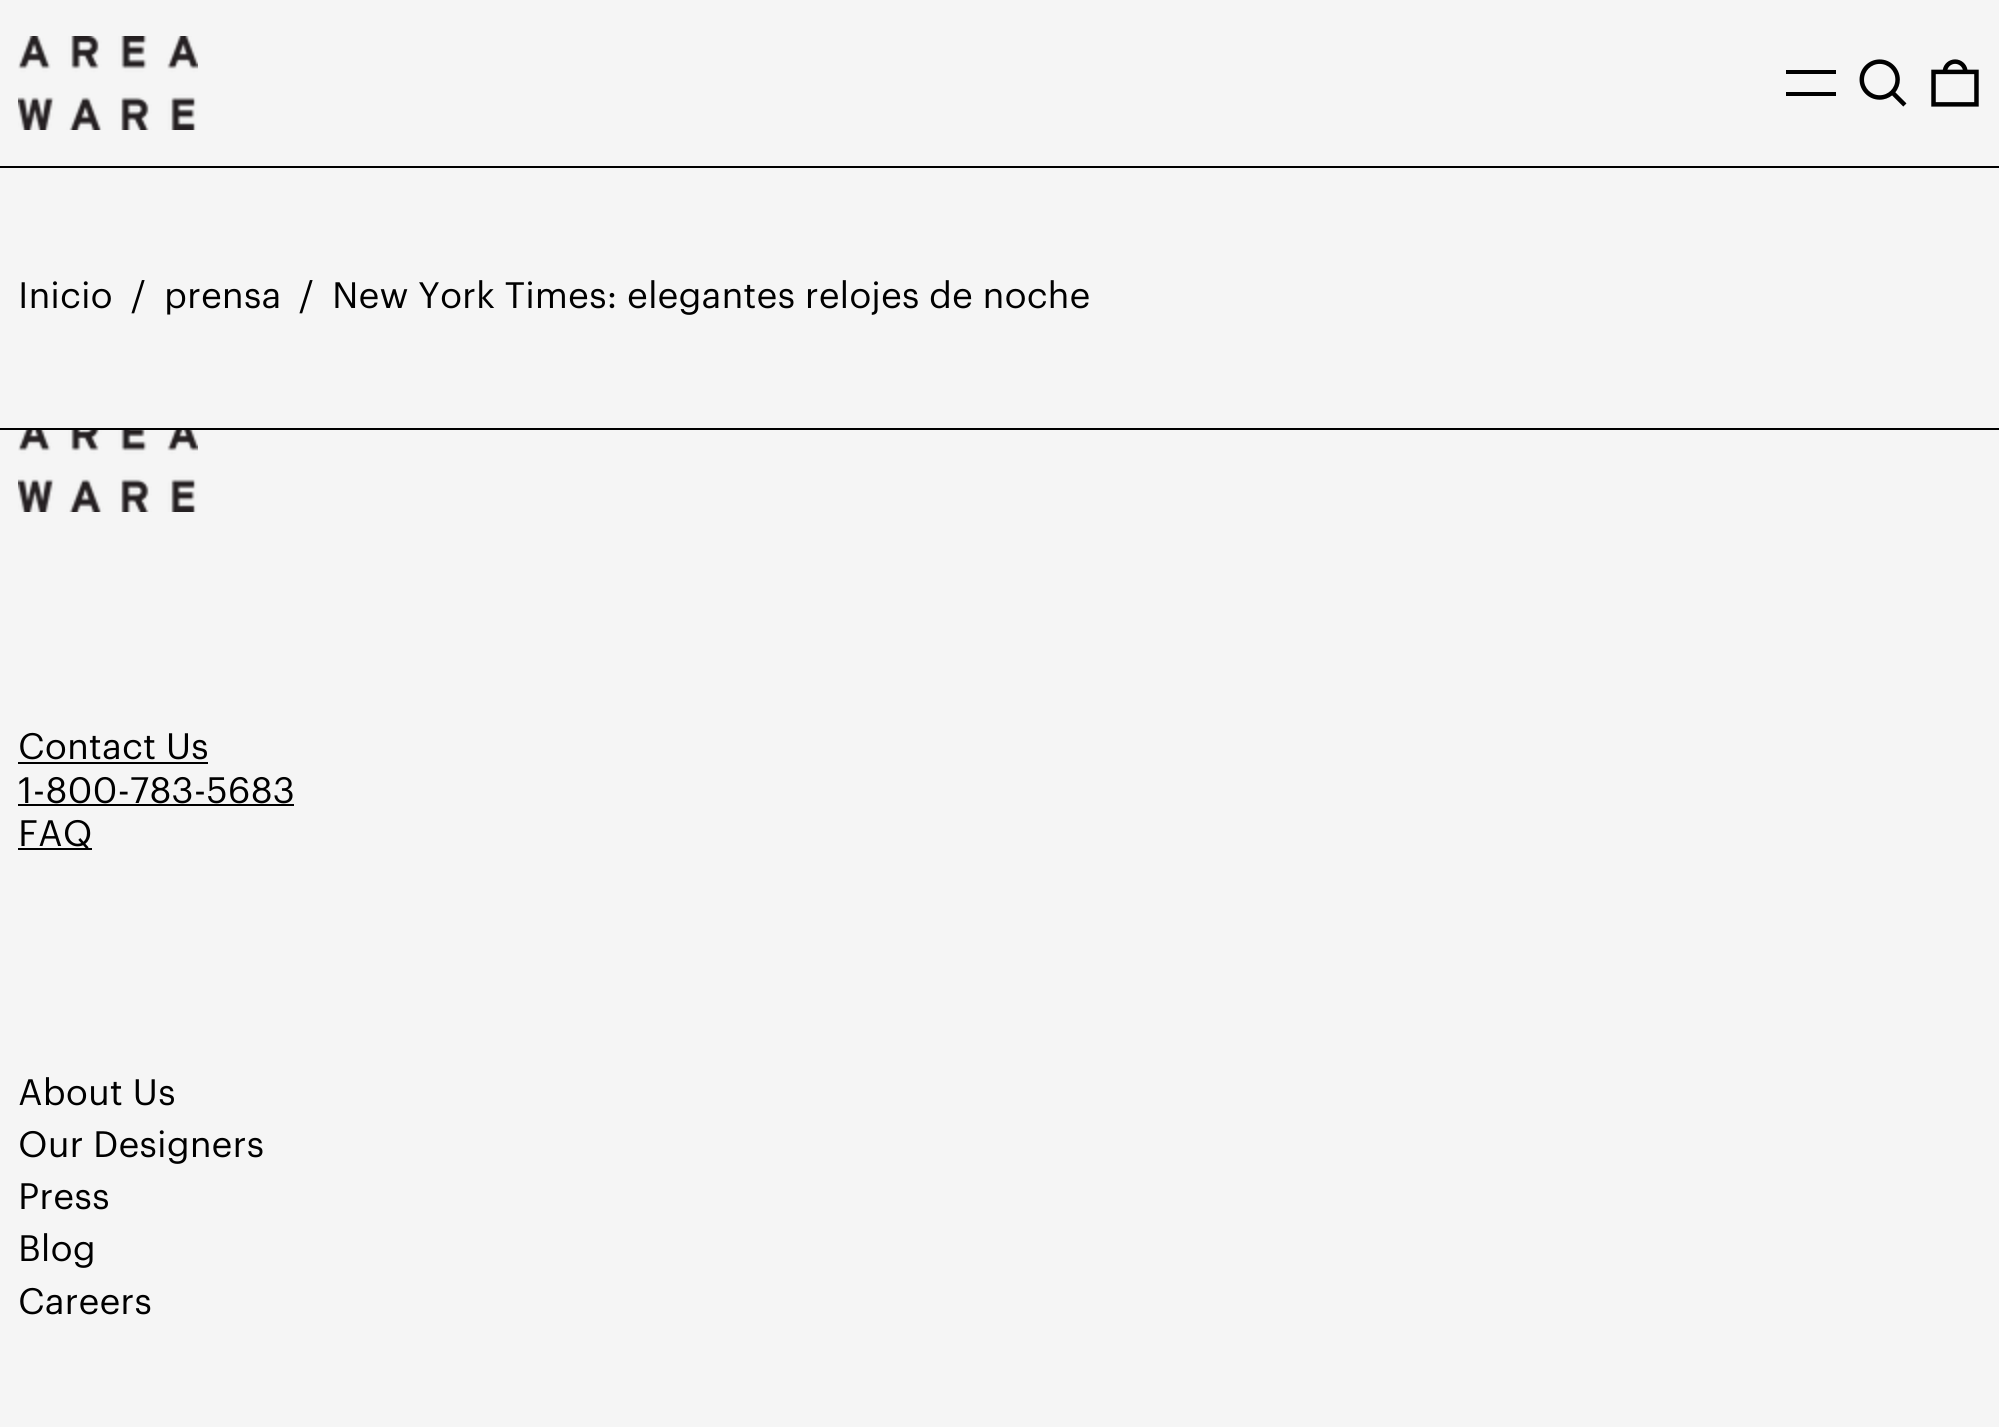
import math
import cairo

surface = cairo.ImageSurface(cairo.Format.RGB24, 1999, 1427)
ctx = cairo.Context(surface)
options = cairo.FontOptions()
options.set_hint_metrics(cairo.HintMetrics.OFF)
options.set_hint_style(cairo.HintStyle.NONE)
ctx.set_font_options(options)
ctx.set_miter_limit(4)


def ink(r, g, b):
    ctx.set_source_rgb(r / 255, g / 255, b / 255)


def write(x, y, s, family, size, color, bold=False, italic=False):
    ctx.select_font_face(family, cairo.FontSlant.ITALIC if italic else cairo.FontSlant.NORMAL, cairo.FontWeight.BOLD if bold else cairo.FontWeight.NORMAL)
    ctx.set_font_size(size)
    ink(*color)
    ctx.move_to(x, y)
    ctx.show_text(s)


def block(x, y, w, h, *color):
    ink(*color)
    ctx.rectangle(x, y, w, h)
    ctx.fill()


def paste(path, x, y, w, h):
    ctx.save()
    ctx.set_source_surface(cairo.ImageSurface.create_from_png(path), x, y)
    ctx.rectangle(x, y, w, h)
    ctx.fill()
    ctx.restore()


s1 = dict(family="Graphik", size=36, color=(0, 0, 0))

ink(245, 245, 245)
ctx.paint()
block(0, 166, 1999, 2, 0, 0, 0)
paste("pic1.png", 18, 36, 180, 94)
ctx.set_fill_rule(cairo.FillRule.EVEN_ODD)
ctx.new_path()
ctx.move_to(1836, 92)
ctx.line_to(1836, 96)
ctx.line_to(1786, 96)
ctx.line_to(1786, 92)
ctx.close_path()
ctx.move_to(1836, 70)
ctx.line_to(1836, 74)
ctx.line_to(1786, 74)
ctx.line_to(1786, 70)
ctx.close_path()
ctx.fill()
paste("pic2.png", 1859, 59, 48, 48)
paste("pic3.png", 1931, 59, 48, 48)
block(0, 428, 1999, 2, 0, 0, 0)
write(18, 308, "Inicio", **s1)
write(131, 308, "/", **s1)
write(164, 308, "prensa", **s1)
write(299, 308, "/", **s1)
write(332, 308, "New York Times: elegantes relojes de noche", **s1)
paste("pic4.png", 18, 430, 180, 82)
write(18, 759, "Contact Us", **s1)
block(18, 762, 190, 2, 0, 0, 0)
write(18, 803, "1-800-783-5683", **s1)
block(18, 804, 276, 2, 0, 0, 0)
block(18, 848, 74, 2, 0, 0, 0)
write(18, 846, "FAQ", **s1)
write(18, 1105, "About Us", **s1)
write(18, 1157, "Our Designers", **s1)
write(18, 1209, "Press", **s1)
write(18, 1261, "Blog", **s1)
write(18, 1314, "Careers", **s1)
surface.write_to_png("screenshot.png")
